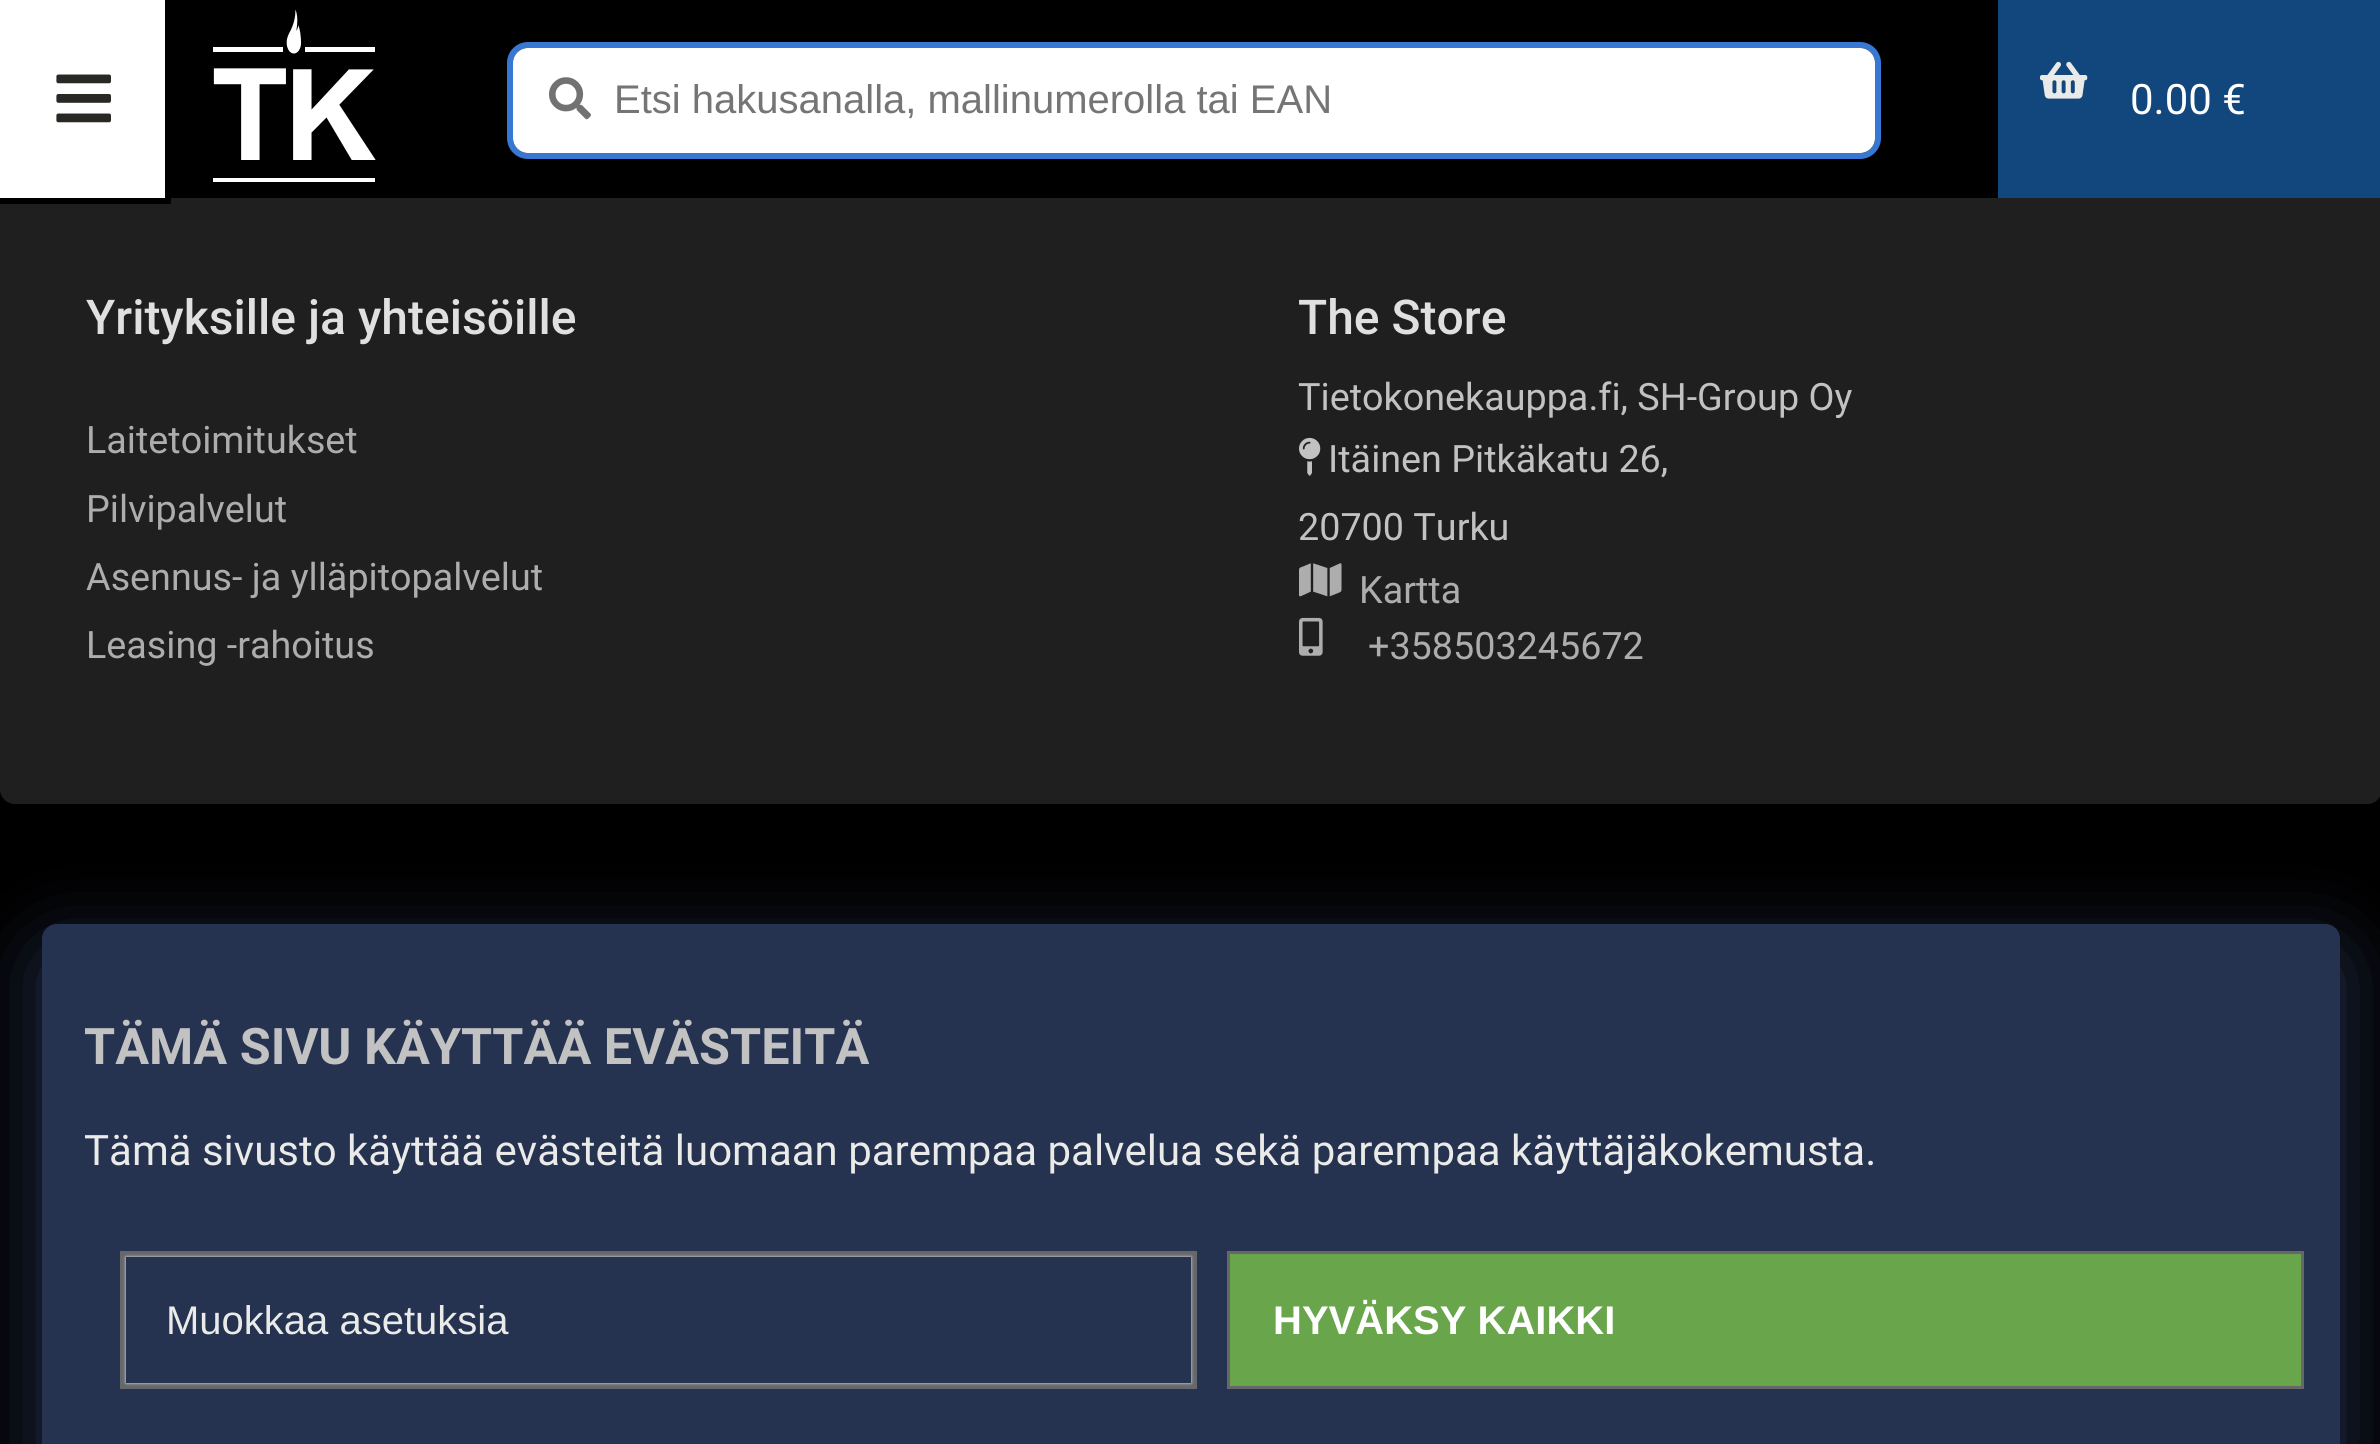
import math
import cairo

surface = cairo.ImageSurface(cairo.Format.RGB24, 2380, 1444)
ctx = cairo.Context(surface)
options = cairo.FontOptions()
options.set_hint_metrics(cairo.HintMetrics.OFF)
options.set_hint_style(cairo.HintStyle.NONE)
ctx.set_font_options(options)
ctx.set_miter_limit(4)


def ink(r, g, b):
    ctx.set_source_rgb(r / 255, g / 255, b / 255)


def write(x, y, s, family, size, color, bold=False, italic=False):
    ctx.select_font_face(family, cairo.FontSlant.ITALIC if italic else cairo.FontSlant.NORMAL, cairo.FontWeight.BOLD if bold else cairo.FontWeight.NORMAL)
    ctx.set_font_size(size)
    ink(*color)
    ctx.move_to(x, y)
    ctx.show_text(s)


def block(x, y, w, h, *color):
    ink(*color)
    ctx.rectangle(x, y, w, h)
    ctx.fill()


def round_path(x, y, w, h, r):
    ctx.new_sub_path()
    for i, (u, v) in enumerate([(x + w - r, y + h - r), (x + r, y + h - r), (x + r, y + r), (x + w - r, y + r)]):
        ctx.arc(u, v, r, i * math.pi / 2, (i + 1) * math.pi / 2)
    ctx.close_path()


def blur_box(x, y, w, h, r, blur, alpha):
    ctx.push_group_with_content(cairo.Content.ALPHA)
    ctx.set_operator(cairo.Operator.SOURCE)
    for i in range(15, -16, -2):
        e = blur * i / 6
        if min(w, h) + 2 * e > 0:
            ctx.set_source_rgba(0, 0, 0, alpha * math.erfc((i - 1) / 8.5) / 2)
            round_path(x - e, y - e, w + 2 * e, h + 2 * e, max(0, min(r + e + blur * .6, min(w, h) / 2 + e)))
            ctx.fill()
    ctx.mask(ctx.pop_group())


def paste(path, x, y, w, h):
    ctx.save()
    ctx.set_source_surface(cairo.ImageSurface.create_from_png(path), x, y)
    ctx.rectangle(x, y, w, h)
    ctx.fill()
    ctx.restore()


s1 = dict(family="Liberation Sans", size=40, color=(117, 117, 117))
s2 = dict(family="Roboto", size=42, color=(255, 255, 255))
s3 = dict(family="Roboto Medium", size=48, color=(224, 224, 224))
s4 = dict(family="Roboto", size=37.75, color=(173, 173, 173))
s5 = dict(family="Roboto", size=37.75, color=(194, 194, 194))
s6 = dict(family="Roboto", size=50.4, color=(194, 194, 194), bold=True)
s7 = dict(family="Roboto", size=42, color=(234, 234, 232))
s8 = dict(family="Liberation Sans", size=40, color=(234, 234, 232))
s9 = dict(family="Liberation Sans", size=40, color=(255, 255, 255), bold=True)

ink(0, 0, 0)
ctx.paint()
ink(31, 31, 31)
ctx.new_path()
ctx.move_to(0, -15)
ctx.line_to(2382, -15)
ctx.line_to(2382, 789)
ctx.curve_to(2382, 797.5, 2375.5, 804, 2367, 804)
ctx.line_to(15, 804)
ctx.curve_to(6.5, 804, 0, 797.5, 0, 789)
ctx.close_path()
ctx.fill()
block(171, 0, 1827, 198, 0, 0, 0)
ctx.rectangle(-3, -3, 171, 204)
ctx.set_line_width(6)
ctx.stroke()
block(0, 0, 165, 198, 255, 255, 255)
paste("pic1.png", 56, 74, 55, 49)
paste("pic2.png", 213, 9, 163, 173)
round_path(510, 45, 1368, 111, 18)
ink(55, 120, 212)
ctx.stroke()
ink(255, 255, 255)
round_path(513, 48, 1362, 105, 15)
ctx.fill()
paste("pic3.png", 549, 77, 42, 43)
write(614, 113, "Etsi hakusanalla, mallinumerolla tai EAN", **s1)
block(1998, 0, 382, 198, 18, 71, 125)
paste("pic4.png", 2040, 61, 48, 38)
write(2130, 114, "0.00 €", **s2)
write(86, 334, "Yrityksille ja yhteisöille", **s3)
write(86, 453, "Laitetoimitukset", **s4)
write(86, 522, "Pilvipalvelut", **s4)
write(86, 590, "Asennus- ja ylläpitopalvelut", **s4)
write(86, 658, "Leasing -rahoitus", **s4)
write(1298, 334, "The Store", **s3)
write(1298, 410, "Tietokonekauppa.fi, SH-Group Oy", **s5)
paste("pic5.png", 1299, 437, 22, 39)
write(1328, 472, "Itäinen Pitkäkatu 26,", **s5)
write(1298, 540, "20700 Turku", **s5)
paste("pic6.png", 1299, 563, 43, 34)
write(1359, 603, "Kartta", **s4)
paste("pic7.png", 1299, 617, 24, 39)
write(1368, 659, "+358503245672", **s4)
ink(37, 50, 80)
blur_box(42, 951, 2298, 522, 15, 39.5, 1)
ink(37, 50, 80)
ctx.new_path()
ctx.move_to(57, 924)
ctx.line_to(2325, 924)
ctx.curve_to(2333.5, 924, 2340, 930.5, 2340, 939)
ctx.line_to(2340, 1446)
ctx.line_to(42, 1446)
ctx.line_to(42, 939)
ctx.curve_to(42, 930.5, 48.5, 924, 57, 924)
ctx.close_path()
ctx.fill()
write(84, 1064, "TÄMÄ SIVU KÄYTTÄÄ EVÄSTEITÄ", **s6)
write(84, 1165, "Tämä sivusto käyttää evästeitä luomaan parempaa palvelua sekä parempaa käyttäjäkokemusta.", **s7)
ctx.rectangle(123, 1254, 1071, 132)
ink(102, 103, 107)
ctx.stroke()
ctx.save()
ctx.set_fill_rule(cairo.FillRule.EVEN_ODD)
ctx.new_path()
ctx.move_to(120, 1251)
ctx.line_to(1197, 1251)
ctx.line_to(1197, 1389)
ctx.line_to(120, 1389)
ctx.close_path()
ctx.move_to(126, 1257)
ctx.line_to(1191, 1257)
ctx.line_to(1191, 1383)
ctx.line_to(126, 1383)
ctx.close_path()
ctx.clip()
ink(234, 234, 232)
blur_box(126, 1257, 1065, 126, 0, 1.5, 1)
ctx.restore()
write(166, 1334, "Muokkaa asetuksia", **s8)
ctx.rectangle(1230, 1254, 1071, 132)
ink(102, 103, 107)
ctx.stroke()
ctx.rectangle(1231.5, 1255.5, 1068, 129)
ink(104, 165, 75)
ctx.set_line_width(3)
ctx.stroke()
block(1233, 1257, 1065, 126, 104, 165, 75)
write(1273, 1334, "HYVÄKSY KAIKKI", **s9)
surface.write_to_png("screenshot.png")
